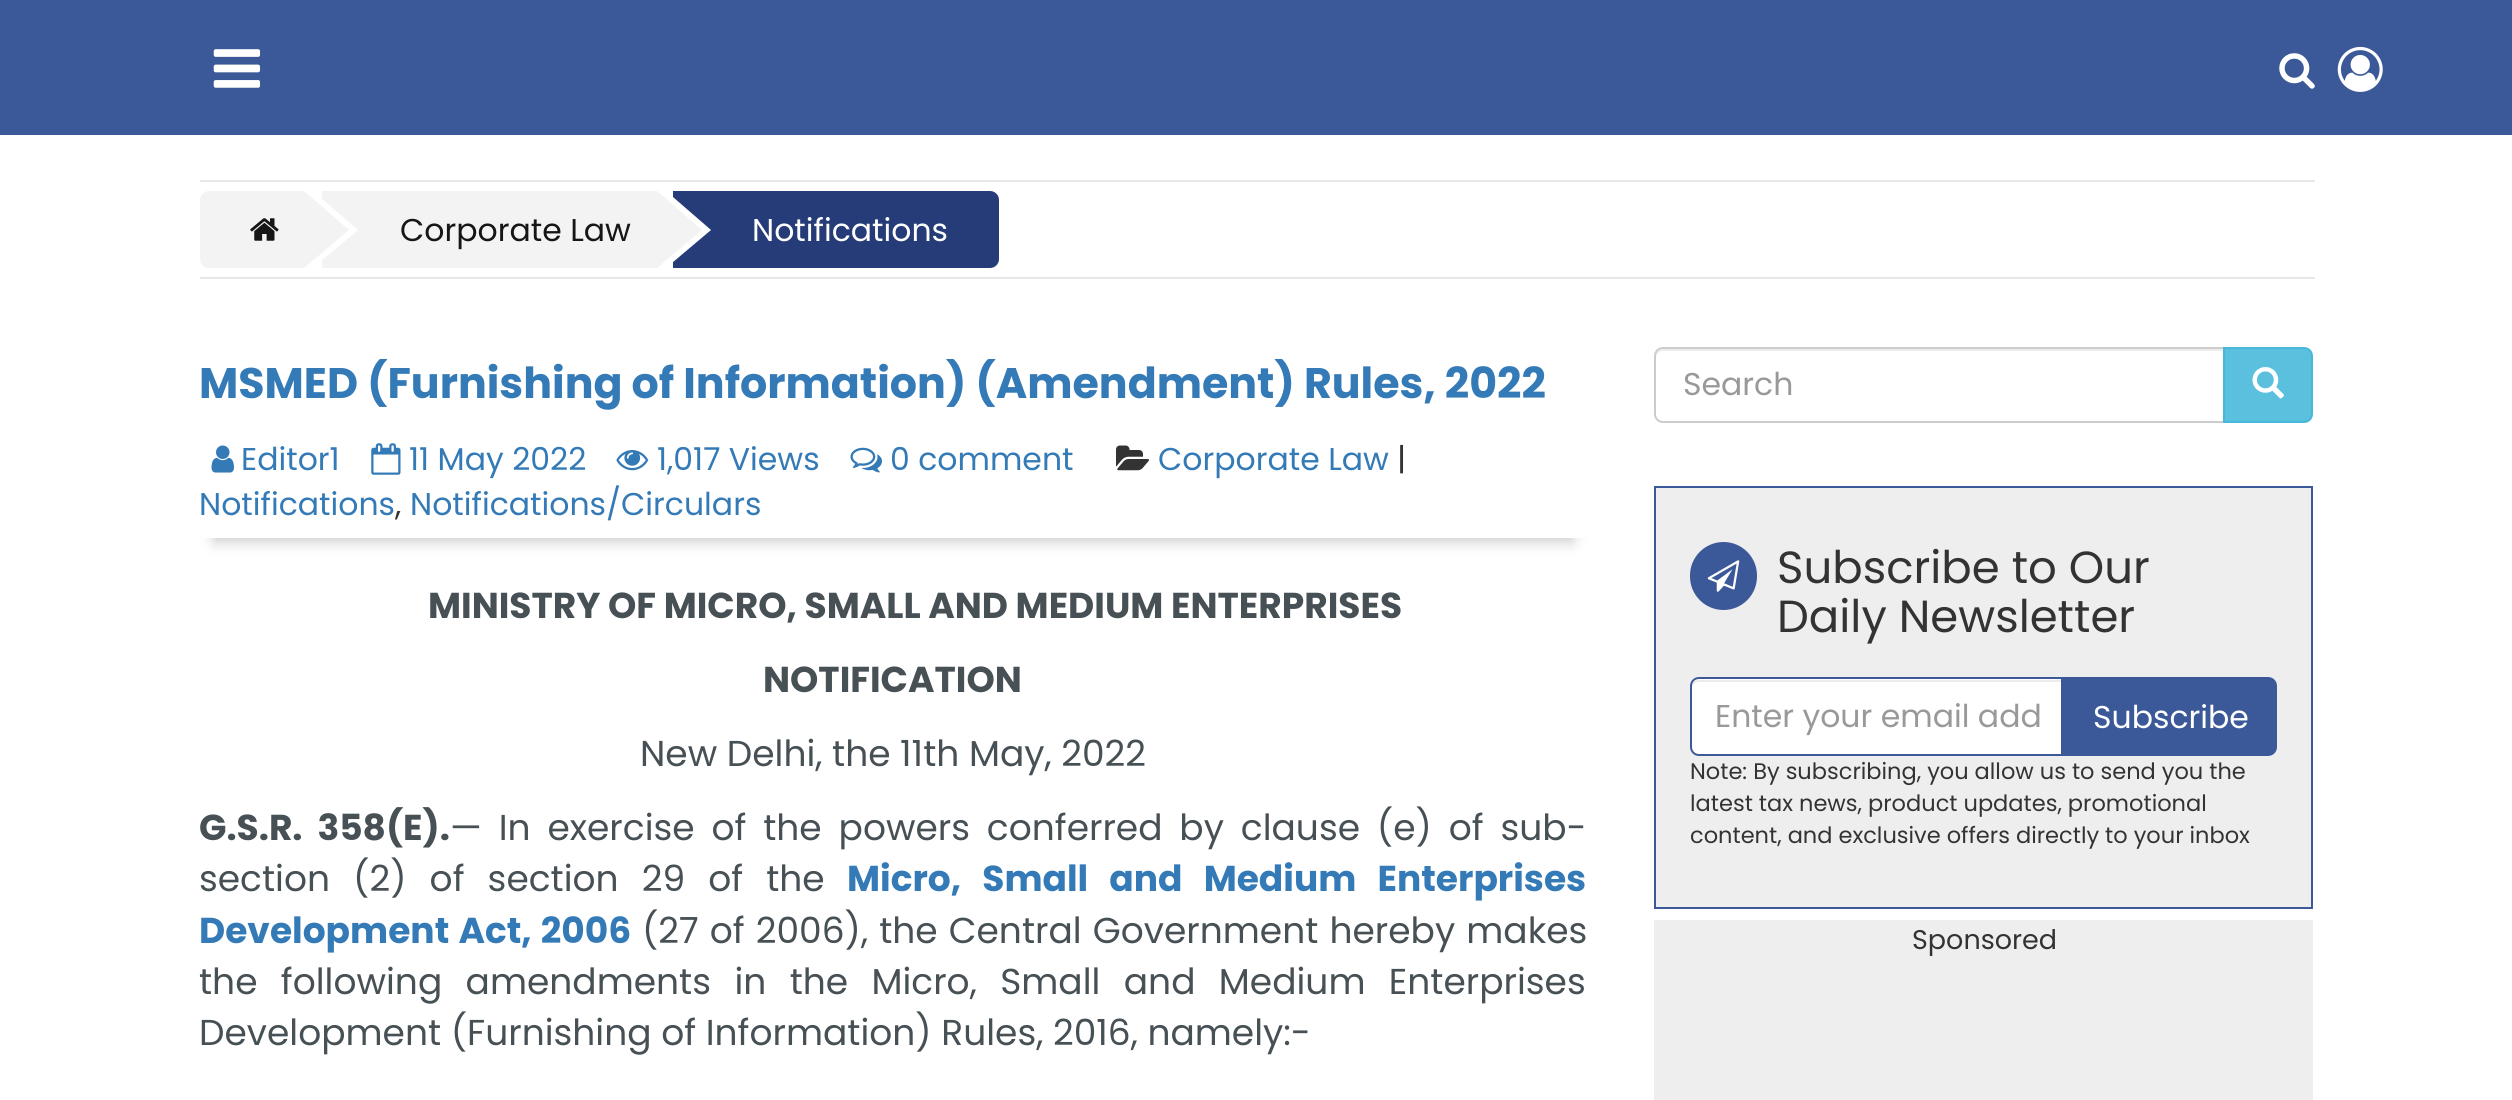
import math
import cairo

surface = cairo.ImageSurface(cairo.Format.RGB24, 2512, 1100)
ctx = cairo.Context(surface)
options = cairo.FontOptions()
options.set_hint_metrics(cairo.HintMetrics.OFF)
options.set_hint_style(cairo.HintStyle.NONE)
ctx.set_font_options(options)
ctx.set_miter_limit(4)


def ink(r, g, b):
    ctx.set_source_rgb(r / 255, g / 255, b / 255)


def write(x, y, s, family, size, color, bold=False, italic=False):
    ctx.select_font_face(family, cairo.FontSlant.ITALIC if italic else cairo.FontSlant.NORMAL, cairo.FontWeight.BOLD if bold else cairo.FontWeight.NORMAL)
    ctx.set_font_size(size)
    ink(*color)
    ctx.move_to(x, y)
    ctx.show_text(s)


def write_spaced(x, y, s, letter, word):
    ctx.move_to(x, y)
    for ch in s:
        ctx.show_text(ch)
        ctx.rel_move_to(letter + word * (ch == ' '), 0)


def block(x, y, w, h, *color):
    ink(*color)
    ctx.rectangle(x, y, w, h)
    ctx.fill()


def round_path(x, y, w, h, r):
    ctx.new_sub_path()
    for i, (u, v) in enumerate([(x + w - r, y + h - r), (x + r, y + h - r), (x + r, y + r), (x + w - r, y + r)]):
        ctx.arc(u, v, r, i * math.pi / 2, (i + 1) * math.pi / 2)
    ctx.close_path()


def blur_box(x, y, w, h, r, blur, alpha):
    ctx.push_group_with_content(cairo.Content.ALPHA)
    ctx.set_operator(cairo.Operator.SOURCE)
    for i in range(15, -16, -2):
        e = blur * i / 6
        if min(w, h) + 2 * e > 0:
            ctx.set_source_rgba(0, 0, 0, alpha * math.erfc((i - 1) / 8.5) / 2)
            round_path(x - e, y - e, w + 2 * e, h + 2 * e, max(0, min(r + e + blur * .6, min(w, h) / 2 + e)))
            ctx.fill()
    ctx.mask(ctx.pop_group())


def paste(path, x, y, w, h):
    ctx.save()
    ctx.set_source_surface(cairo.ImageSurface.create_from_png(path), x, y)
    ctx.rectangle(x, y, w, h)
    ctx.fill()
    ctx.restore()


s1 = dict(family="Poppins", size=31.5, color=(23, 22, 23))
s2 = dict(family="Poppins", size=31.5, color=(255, 255, 255))
s3 = dict(family="Poppins", size=42.75, color=(51, 122, 183), bold=True)
s4 = dict(family="Poppins", size=31.5, color=(51, 122, 183))
s5 = dict(family="Poppins", size=31.5, color=(51, 51, 51))
s6 = dict(family="Poppins", size=36, color=(71, 80, 85), bold=True)
s7 = dict(family="Poppins", size=36, color=(71, 80, 85))
s8 = dict(family="Poppins", size=31.5, color=(153, 153, 153))
s9 = dict(family="Poppins", size=45, color=(51, 51, 51))
s10 = dict(family="Poppins", size=22.5, color=(51, 51, 51))
s11 = dict(family="Poppins", size=27, color=(51, 51, 51))

ink(255, 255, 255)
ctx.paint()
block(0, 0, 2512, 135, 59, 89, 152)
paste("pic1.png", 213, 49, 48, 39)
paste("pic2.png", 2279, 53, 36, 36)
paste("pic3.png", 2337, 46, 46, 46)
block(200, 180, 2115, 2, 231, 231, 231)
block(200, 277, 2115, 2, 231, 231, 231)
ink(243, 243, 243)
ctx.new_path()
ctx.move_to(209, 191)
ctx.line_to(304, 191)
ctx.line_to(304, 268)
ctx.line_to(209, 268)
ctx.curve_to(204, 268, 200, 264, 200, 259)
ctx.line_to(200, 200)
ctx.curve_to(200, 195, 204, 191, 209, 191)
ctx.close_path()
ctx.fill()
paste("pic4.png", 250, 218, 29, 23)
block(322, 191, 335, 77, 243, 243, 243)
ink(255, 255, 255)
ctx.new_path()
ctx.move_to(313, 268)
ctx.line_to(313, 191)
ctx.line_to(358, 230)
ctx.close_path()
ctx.fill()
ink(243, 243, 243)
ctx.new_path()
ctx.move_to(304, 268)
ctx.line_to(304, 191)
ctx.line_to(349, 230)
ctx.close_path()
ctx.fill()
write(400, 241, "Corporate Law", **s1)
ink(38, 60, 120)
ctx.new_path()
ctx.move_to(673, 191)
ctx.line_to(990, 191)
ctx.curve_to(995, 191, 999, 195, 999, 200)
ctx.line_to(999, 259)
ctx.curve_to(999, 264, 995, 268, 990, 268)
ctx.line_to(673, 268)
ctx.close_path()
ctx.fill()
ink(255, 255, 255)
ctx.new_path()
ctx.move_to(666, 268)
ctx.line_to(666, 191)
ctx.line_to(711, 230)
ctx.close_path()
ctx.fill()
ink(243, 243, 243)
ctx.new_path()
ctx.move_to(657, 268)
ctx.line_to(657, 191)
ctx.line_to(702, 230)
ctx.close_path()
ctx.fill()
write(752, 241, "Notifications", **s2)
ctx.save()
ctx.set_fill_rule(cairo.FillRule.EVEN_ODD)
ctx.new_path()
ctx.move_to(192, 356)
ctx.line_to(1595, 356)
ctx.line_to(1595, 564)
ctx.line_to(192, 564)
ctx.close_path()
ctx.move_to(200, 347)
ctx.line_to(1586, 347)
ctx.line_to(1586, 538)
ctx.line_to(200, 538)
ctx.close_path()
ctx.clip()
ink(0, 0, 0)
blur_box(214, 378, 1359, 164, 0, 7, 0.2)
ctx.restore()
write(199, 398, "MSMED (Furnishing of Information) (Amendment) Rules, 2022", **s3)
paste("pic5.png", 211, 445, 23, 28)
write(241, 470, "Editor1", **s4)
paste("pic6.png", 371, 443, 30, 32)
write(409, 470, "11 May 2022", **s4)
paste("pic7.png", 616, 450, 32, 21)
write(657, 470, "1,017 Views", **s4)
paste("pic8.png", 850, 447, 32, 26)
write(890, 470, "0 comment", **s4)
paste("pic9.png", 1116, 445, 33, 26)
write(1158, 470, "Corporate Law", **s4)
write(1397, 470, "|", **s5)
write(199, 515, "Notifications", **s4)
write(395, 515, ",", **s5)
write(410, 515, "Notifications/Circulars", **s4)
write(428, 618, "MINISTRY OF MICRO, SMALL AND MEDIUM ENTERPRISES", **s6)
write(763, 692, "NOTIFICATION", **s6)
write(640, 766, "New Delhi, the 11th May, 2022", **s7)
ctx.select_font_face("Poppins", cairo.FontSlant.NORMAL, cairo.FontWeight.BOLD)
write_spaced(199, 840, "G.S.R. 358(E).", 0, 7.25)
ctx.select_font_face("Poppins")
write_spaced(450, 840, "— In exercise of the powers conferred by clause (e) of sub-", 0, 7.25)
write_spaced(199, 891, "section (2) of section 29 of the", 0, 13.5)
ctx.select_font_face("Poppins", cairo.FontSlant.NORMAL, cairo.FontWeight.BOLD)
ink(51, 122, 183)
write_spaced(847, 891, "Micro, Small and Medium Enterprises", 0, 13.5)
write_spaced(199, 943, "Development Act, 2006", 0, 1.5)
ctx.select_font_face("Poppins")
ink(71, 80, 85)
write_spaced(642, 943, "(27 of 2006), the Central Government hereby makes", 0, 1.5)
write_spaced(199, 994, "the following amendments in the Micro, Small and Medium Enterprises", 0, 13.75)
write(199, 1045, "Development (Furnishing of Information) Rules, 2016, namely:-", **s7)
ink(236, 236, 236)
ctx.new_path()
ctx.move_to(1663, 351)
ctx.line_to(2223, 351)
ctx.line_to(2223, 349)
ctx.line_to(1663, 349)
ctx.curve_to(1659, 349, 1656, 352, 1656, 356)
ctx.line_to(1656, 358)
ctx.curve_to(1656, 354, 1659, 351, 1663, 351)
ctx.close_path()
ctx.fill()
ctx.new_path()
ctx.move_to(1663, 348)
ctx.line_to(2224, 348)
ctx.line_to(2224, 422)
ctx.line_to(1663, 422)
ctx.curve_to(1658.5, 422, 1655, 418.5, 1655, 414)
ctx.line_to(1655, 356)
ctx.curve_to(1655, 351.5, 1658.5, 348, 1663, 348)
ctx.close_path()
ink(204, 204, 204)
ctx.stroke()
write(1683, 395, "Search", **s8)
ink(91, 192, 222)
ctx.new_path()
ctx.move_to(2224, 348)
ctx.line_to(2304, 348)
ctx.curve_to(2308.5, 348, 2312, 351.5, 2312, 356)
ctx.line_to(2312, 414)
ctx.curve_to(2312, 418.5, 2308.5, 422, 2304, 422)
ctx.line_to(2224, 422)
ctx.close_path()
ctx.fill_preserve()
ink(70, 184, 218)
ctx.stroke()
paste("pic10.png", 2252, 367, 32, 32)
ink(238, 238, 238)
ctx.rectangle(1655, 487, 657, 421)
ctx.fill_preserve()
ink(59, 89, 152)
ctx.stroke()
round_path(1690, 542, 67, 68, 33.5)
ctx.fill()
paste("pic11.png", 1707, 560, 33, 32)
write(1777, 583, "Subscribe to Our", **s9)
write(1777, 632, "Daily Newsletter", **s9)
ink(255, 255, 255)
ctx.new_path()
ctx.move_to(1699, 677)
ctx.line_to(2063, 677)
ctx.line_to(2063, 756)
ctx.line_to(1699, 756)
ctx.curve_to(1694, 756, 1690, 752, 1690, 747)
ctx.line_to(1690, 686)
ctx.curve_to(1690, 681, 1694, 677, 1699, 677)
ctx.close_path()
ctx.fill()
ink(236, 236, 236)
ctx.new_path()
ctx.move_to(1699, 682)
ctx.line_to(2061, 682)
ctx.line_to(2061, 680)
ctx.line_to(1699, 680)
ctx.curve_to(1695, 680, 1692, 683, 1692, 687)
ctx.line_to(1692, 688)
ctx.curve_to(1692, 685, 1695, 682, 1699, 682)
ctx.close_path()
ctx.fill()
ctx.new_path()
ctx.move_to(1699, 678)
ctx.line_to(2062, 678)
ctx.line_to(2062, 755)
ctx.line_to(1699, 755)
ctx.curve_to(1694.5, 755, 1691, 751.5, 1691, 747)
ctx.line_to(1691, 686)
ctx.curve_to(1691, 681.5, 1694.5, 678, 1699, 678)
ctx.close_path()
ink(59, 89, 152)
ctx.stroke()
ctx.save()
ctx.rectangle(1715, 693, 324, 47)
ctx.clip()
write(1715, 727, "Enter your email add", **s8)
ctx.restore()
ctx.new_path()
ctx.move_to(2064, 678)
ctx.line_to(2268, 678)
ctx.curve_to(2272.5, 678, 2276, 681.5, 2276, 686)
ctx.line_to(2276, 747)
ctx.curve_to(2276, 751.5, 2272.5, 755, 2268, 755)
ctx.line_to(2064, 755)
ctx.close_path()
ctx.fill_preserve()
ctx.stroke()
write(2093, 728, "Subscribe", **s2)
write(1690, 779, "Note: By subscribing, you allow us to send you the", **s10)
write(1690, 811, "latest tax news, product updates, promotional", **s10)
write(1690, 843, "content, and exclusive offers directly to your inbox", **s10)
block(1654, 920, 659, 180, 238, 238, 238)
write(1912, 949, "Sponsored", **s11)
surface.write_to_png("screenshot.png")
